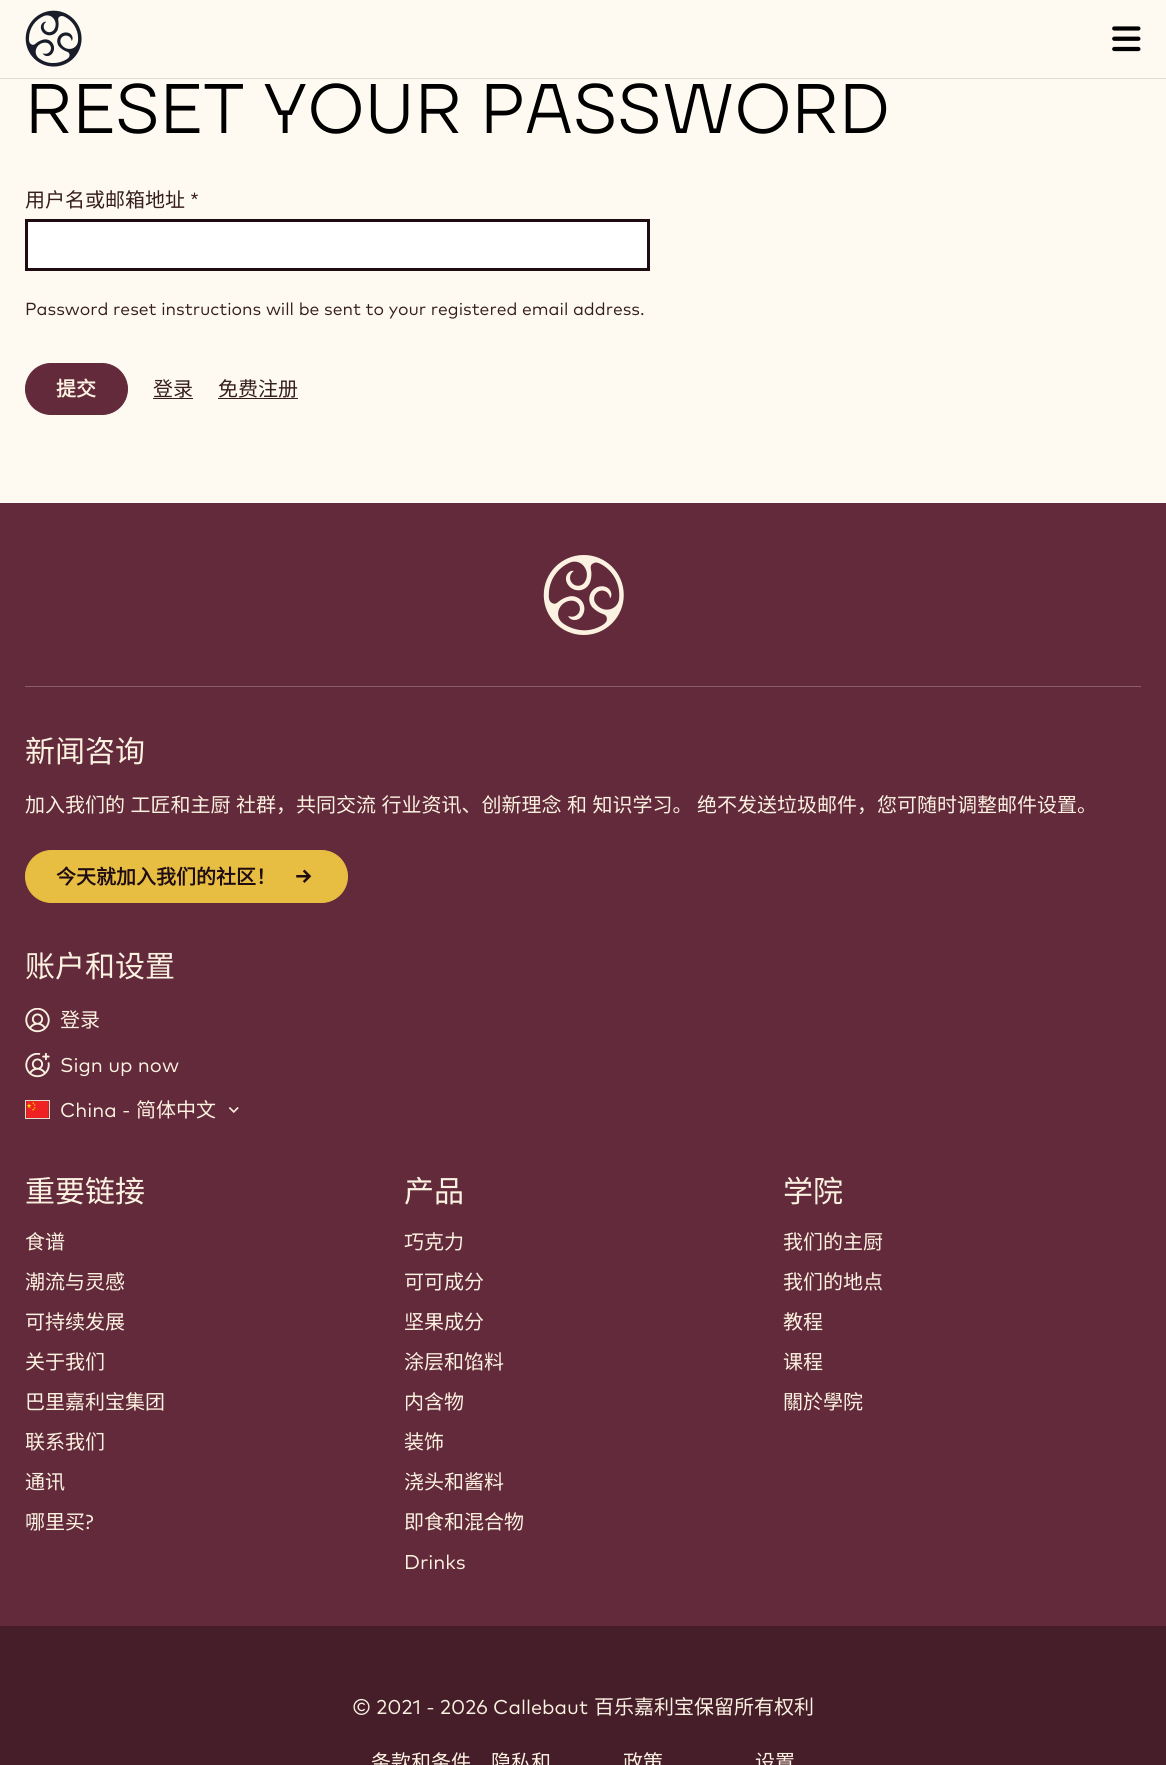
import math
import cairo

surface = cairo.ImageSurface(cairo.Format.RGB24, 1166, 1765)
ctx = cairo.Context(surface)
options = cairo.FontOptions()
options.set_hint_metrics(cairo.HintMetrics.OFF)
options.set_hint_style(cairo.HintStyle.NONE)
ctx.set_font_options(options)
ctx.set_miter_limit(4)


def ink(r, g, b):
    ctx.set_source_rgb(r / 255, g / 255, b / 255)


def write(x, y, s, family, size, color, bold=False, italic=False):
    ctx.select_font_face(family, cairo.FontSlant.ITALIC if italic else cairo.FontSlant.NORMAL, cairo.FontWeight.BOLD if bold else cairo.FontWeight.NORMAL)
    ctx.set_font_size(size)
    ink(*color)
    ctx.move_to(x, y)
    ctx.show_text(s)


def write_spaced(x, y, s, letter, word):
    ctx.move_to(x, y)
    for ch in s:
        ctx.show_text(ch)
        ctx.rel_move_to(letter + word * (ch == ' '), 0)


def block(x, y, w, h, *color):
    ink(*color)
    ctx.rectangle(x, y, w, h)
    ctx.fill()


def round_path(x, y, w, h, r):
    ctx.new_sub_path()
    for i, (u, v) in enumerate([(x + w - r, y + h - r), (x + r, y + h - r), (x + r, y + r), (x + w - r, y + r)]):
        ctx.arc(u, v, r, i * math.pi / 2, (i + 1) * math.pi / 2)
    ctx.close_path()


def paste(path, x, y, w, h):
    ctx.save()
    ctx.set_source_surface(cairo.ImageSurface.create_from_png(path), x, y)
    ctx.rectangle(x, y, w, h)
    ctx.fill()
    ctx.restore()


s1 = dict(family="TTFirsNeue", size=70, color=(0, 0, 0))
s2 = dict(family="Noto Sans CJK SC", size=20, color=(54, 31, 26))
s3 = dict(family="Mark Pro", size=20, color=(54, 31, 26))
s4 = dict(family="Mark Pro", size=17.5, color=(54, 31, 26))
s5 = dict(family="Noto Sans CJK SC", size=20, color=(252, 242, 225), bold=True)
s6 = dict(family="Noto Sans CJK SC", size=30, color=(252, 242, 225))
s7 = dict(family="Noto Sans CJK SC", size=20, color=(252, 242, 225))
s8 = dict(family="Noto Sans CJK SC", size=20, color=(30, 12, 18), bold=True)
s9 = dict(family="Mark Pro", size=20, color=(252, 242, 225))

ink(254, 250, 242)
ctx.paint()
block(0, 78, 1166, 1, 224, 220, 205)
paste("pic1.png", 25, 10, 57, 57)
paste("pic2.png", 1112, 26, 29, 26)
write(25, 133, "RESET YOUR PASSWORD", **s1)
write(25, 207, "用户名或邮箱地址", **s2)
write(190, 207, "*", **s3)
ink(255, 255, 255)
ctx.rectangle(26.5, 220.5, 622, 49)
ctx.fill_preserve()
ink(30, 12, 18)
ctx.set_line_width(3)
ctx.stroke()
write(25, 315, "Password reset instructions will be sent to your registered email address.", **s4)
ink(98, 42, 58)
round_path(25.5, 363.5, 102, 51, 25.5)
ctx.fill_preserve()
ctx.set_line_width(1)
ctx.stroke()
write(56, 396, "提交", **s5)
write(153, 396, "登录", **s2)
block(153, 398, 40, 1, 54, 31, 26)
write(218, 396, "免费注册", **s2)
block(218, 398, 80, 1, 54, 31, 26)
block(0, 503, 1166, 1123, 98, 42, 58)
paste("pic3.png", 543, 555, 81, 80)
block(25, 686, 1116, 1, 136, 95, 102)
write(25, 762, "新闻咨询", **s6)
ctx.set_font_size(20)
write_spaced(25, 812, "加入我们的 工匠和主厨 社群，共同交流 行业资讯、创新理念 和 知识学习。", 0, 1)
write(697, 812, "绝不发送垃圾邮件，您可随时调整邮件设置。", **s7)
ink(231, 190, 66)
round_path(25.5, 850.5, 322, 52, 26)
ctx.fill_preserve()
ctx.stroke()
write(56, 884, "今天就加入我们的社区！", **s8)
paste("pic4.png", 296, 869, 16, 14)
write(25, 977, "账户和设置", **s6)
paste("pic5.png", 25, 1008, 25, 25)
write(60, 1027, "登录", **s7)
paste("pic6.png", 25, 1053, 25, 25)
write(60, 1072, "Sign up now", **s9)
paste("pic7.png", 26, 1101, 23, 17)
ctx.rectangle(25.5, 1100.5, 24, 18)
ink(224, 220, 205)
ctx.stroke()
write(60, 1117, "China -", **s9)
write(136, 1117, "简体中文", **s7)
paste("pic8.png", 228, 1107, 11, 6)
write(25, 1202, "重要链接", **s6)
write(25, 1249, "食谱", **s7)
write(25, 1289, "潮流与灵感", **s7)
write(25, 1329, "可持续发展", **s7)
write(25, 1369, "关于我们", **s7)
write(25, 1409, "巴里嘉利宝集团", **s7)
write(25, 1449, "联系我们", **s7)
write(25, 1489, "通讯", **s7)
write(25, 1529, "哪里买", **s7)
write(85, 1529, "?", **s9)
write(404, 1202, "产品", **s6)
write(404, 1249, "巧克力", **s7)
write(404, 1289, "可可成分", **s7)
write(404, 1329, "坚果成分", **s7)
write(404, 1369, "涂层和馅料", **s7)
write(404, 1409, "内含物", **s7)
write(404, 1449, "装饰", **s7)
write(404, 1489, "浇头和酱料", **s7)
write(404, 1529, "即食和混合物", **s7)
write(404, 1569, "Drinks", **s9)
write(783, 1202, "学院", **s6)
write(783, 1249, "我们的主厨", **s7)
write(783, 1289, "我们的地点", **s7)
write(783, 1329, "教程", **s7)
write(783, 1369, "课程", **s7)
write(783, 1409, "關於學院", **s7)
block(0, 1626, 1166, 139, 69, 30, 41)
write(352, 1714, "© 2021 - 2026 Callebaut", **s9)
write(594, 1714, "百乐嘉利宝保留所有权利", **s7)
write(371, 1769, "条款和条件", **s7)
write(491, 1769, "隐私和", **s7)
write(623, 1769, "政策", **s7)
write(755, 1769, "设置", **s7)
surface.write_to_png("screenshot.png")
